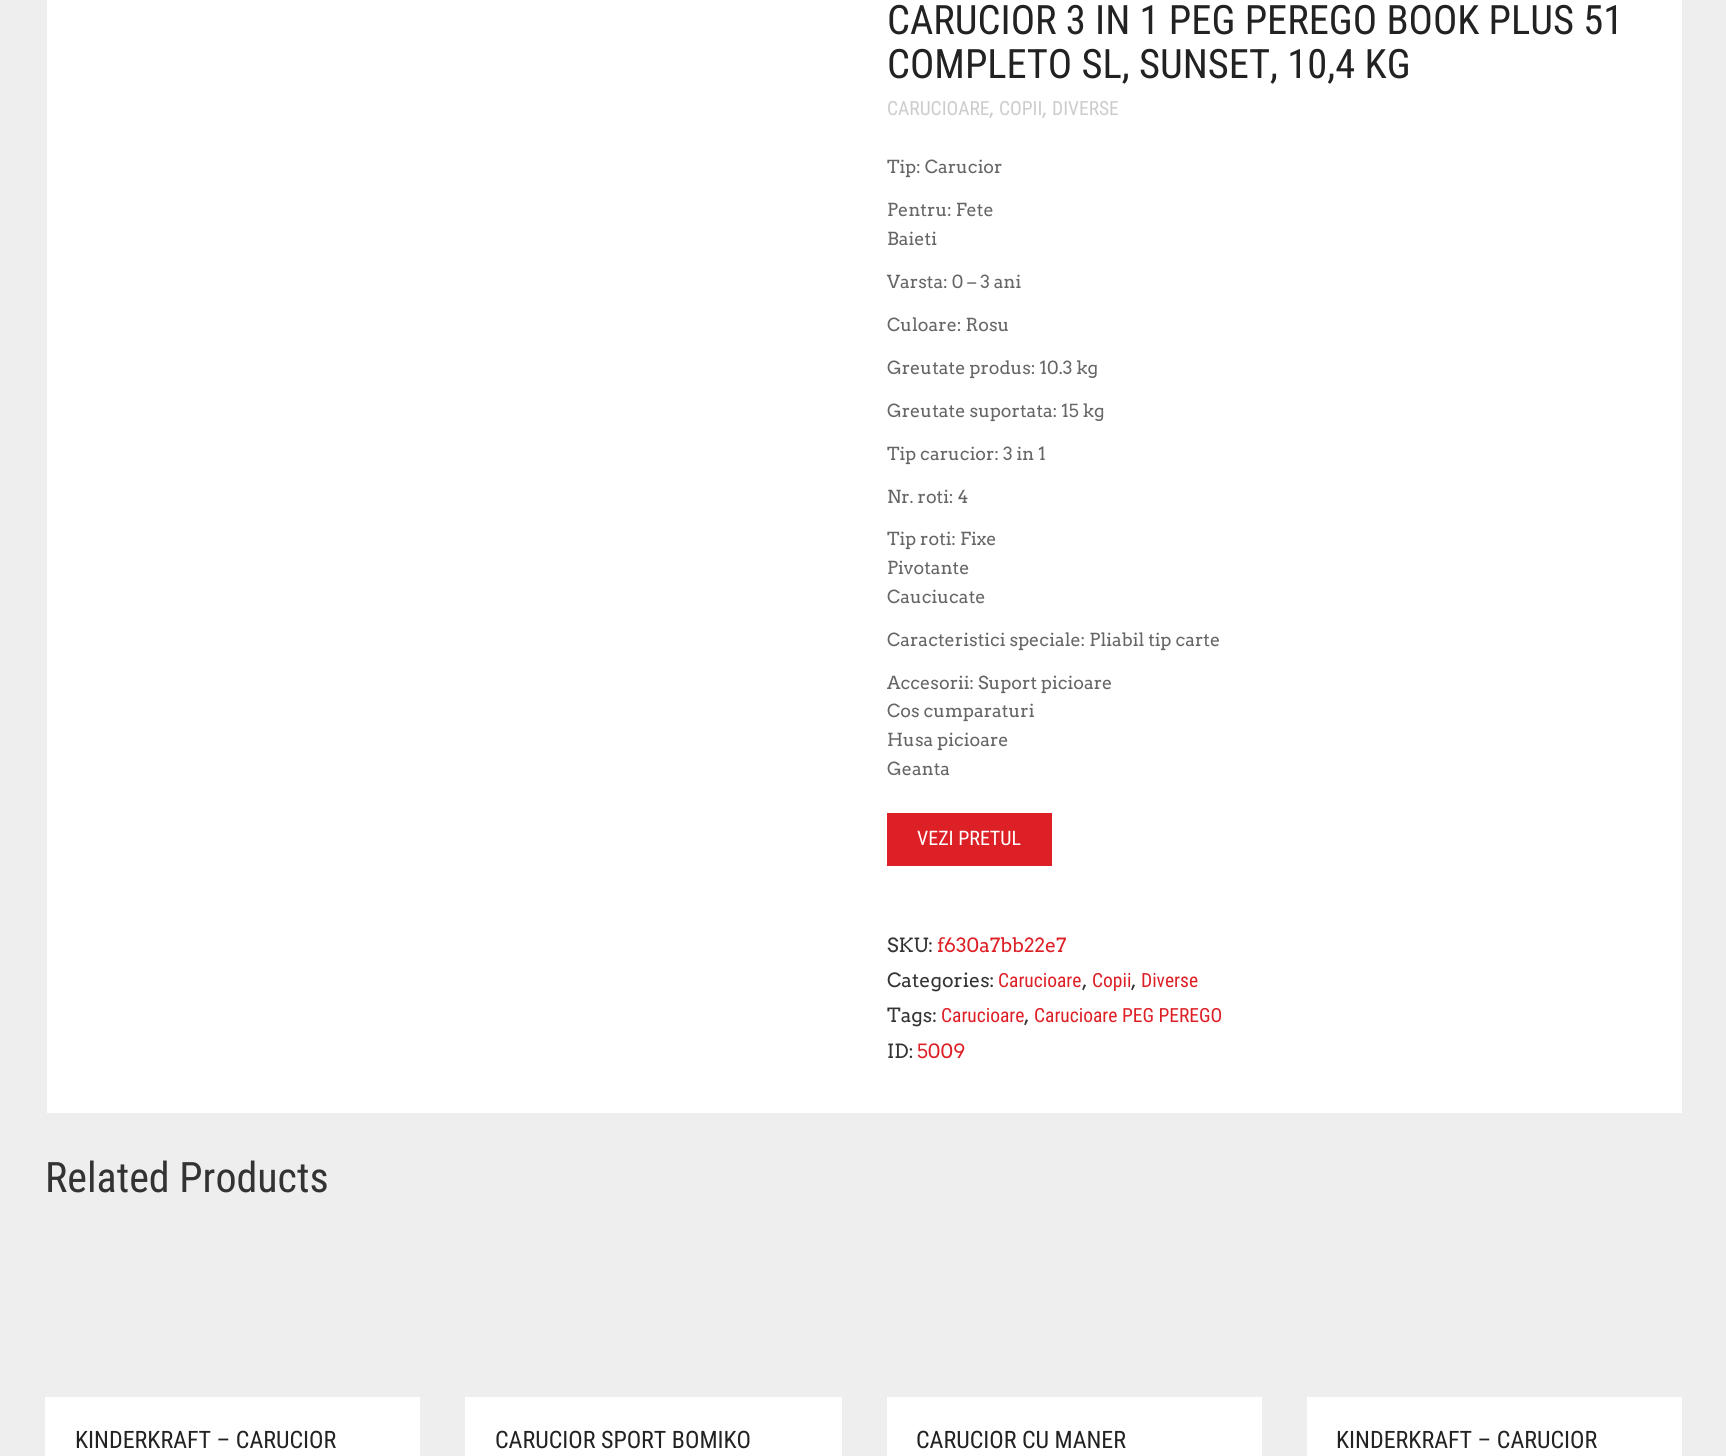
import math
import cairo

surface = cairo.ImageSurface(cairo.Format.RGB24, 1726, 1456)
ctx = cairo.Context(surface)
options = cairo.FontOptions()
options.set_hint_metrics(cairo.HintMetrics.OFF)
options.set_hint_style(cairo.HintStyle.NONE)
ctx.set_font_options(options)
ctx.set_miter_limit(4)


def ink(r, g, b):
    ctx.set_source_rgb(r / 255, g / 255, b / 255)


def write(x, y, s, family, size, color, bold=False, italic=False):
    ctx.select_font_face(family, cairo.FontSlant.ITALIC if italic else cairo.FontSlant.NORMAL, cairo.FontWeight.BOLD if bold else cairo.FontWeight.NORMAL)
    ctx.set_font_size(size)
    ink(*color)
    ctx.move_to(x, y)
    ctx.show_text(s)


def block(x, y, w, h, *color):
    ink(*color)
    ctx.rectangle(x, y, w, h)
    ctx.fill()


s1 = dict(family="Roboto Condensed", size=40.5, color=(34, 34, 34))
s2 = dict(family="Roboto Condensed", size=19.5, color=(204, 204, 204))
s3 = dict(family="Arvo", size=19.5, color=(204, 204, 204))
s4 = dict(family="Arvo", size=17.9, color=(102, 102, 102))
s5 = dict(family="Roboto Condensed", size=20, color=(255, 255, 255))
s6 = dict(family="Arvo", size=19.5, color=(51, 51, 51))
s7 = dict(family="Arvo", size=19.5, color=(221, 31, 38))
s8 = dict(family="Roboto Condensed", size=19.5, color=(221, 31, 38))
s9 = dict(family="Roboto Condensed", size=42, color=(51, 51, 51))
s10 = dict(family="Roboto Condensed", size=24, color=(34, 34, 34))

ink(238, 238, 238)
ctx.paint()
block(47, 0, 1635, 1113, 255, 255, 255)
write(887, 34, "CARUCIOR 3 IN 1 PEG PEREGO BOOK PLUS 51", **s1)
write(887, 78, "COMPLETO SL, SUNSET, 10,4 KG", **s1)
write(887, 115, "CARUCIOARE", **s2)
write(989, 115, ",", **s3)
write(999, 115, "COPII", **s2)
write(1042, 115, ",", **s3)
write(1052, 115, "DIVERSE", **s2)
write(887, 173, "Tip: Carucior", **s4)
write(887, 216, "Pentru: Fete", **s4)
write(887, 245, "Baieti", **s4)
write(887, 288, "Varsta: 0 – 3 ani", **s4)
write(887, 331, "Culoare: Rosu", **s4)
write(887, 374, "Greutate produs: 10.3 kg", **s4)
write(887, 417, "Greutate suportata: 15 kg", **s4)
write(887, 460, "Tip carucior: 3 in 1", **s4)
write(887, 503, "Nr. roti: 4", **s4)
write(887, 545, "Tip roti: Fixe", **s4)
write(887, 574, "Pivotante", **s4)
write(887, 603, "Cauciucate", **s4)
write(887, 646, "Caracteristici speciale: Pliabil tip carte", **s4)
write(887, 689, "Accesorii: Suport picioare", **s4)
write(887, 717, "Cos cumparaturi", **s4)
write(887, 746, "Husa picioare", **s4)
write(887, 775, "Geanta", **s4)
block(887, 813, 165, 53, 221, 31, 38)
write(917, 845, "VEZI PRETUL", **s5)
write(887, 952, "SKU:", **s6)
write(937, 952, "f630a7bb22e7", **s7)
write(887, 987, "Categories:", **s6)
write(998, 987, "Carucioare", **s8)
write(1082, 987, ",", **s6)
write(1092, 987, "Copii", **s8)
write(1131, 987, ",", **s6)
write(1141, 987, "Diverse", **s8)
write(887, 1022, "Tags:", **s6)
write(941, 1022, "Carucioare", **s8)
write(1024, 1022, ",", **s6)
write(1034, 1022, "Carucioare PEG PEREGO", **s8)
write(887, 1058, "ID:", **s6)
write(917, 1058, "5009", **s7)
write(45, 1192, "Related Products", **s9)
block(45, 1397, 375, 59, 255, 255, 255)
write(75, 1448, "KINDERKRAFT – CARUCIOR", **s10)
block(465, 1397, 377, 59, 255, 255, 255)
write(495, 1448, "CARUCIOR SPORT BOMIKO", **s10)
block(887, 1397, 375, 59, 255, 255, 255)
write(916, 1448, "CARUCIOR CU MANER", **s10)
block(1307, 1397, 375, 59, 255, 255, 255)
write(1336, 1448, "KINDERKRAFT – CARUCIOR", **s10)
surface.write_to_png("screenshot.png")
